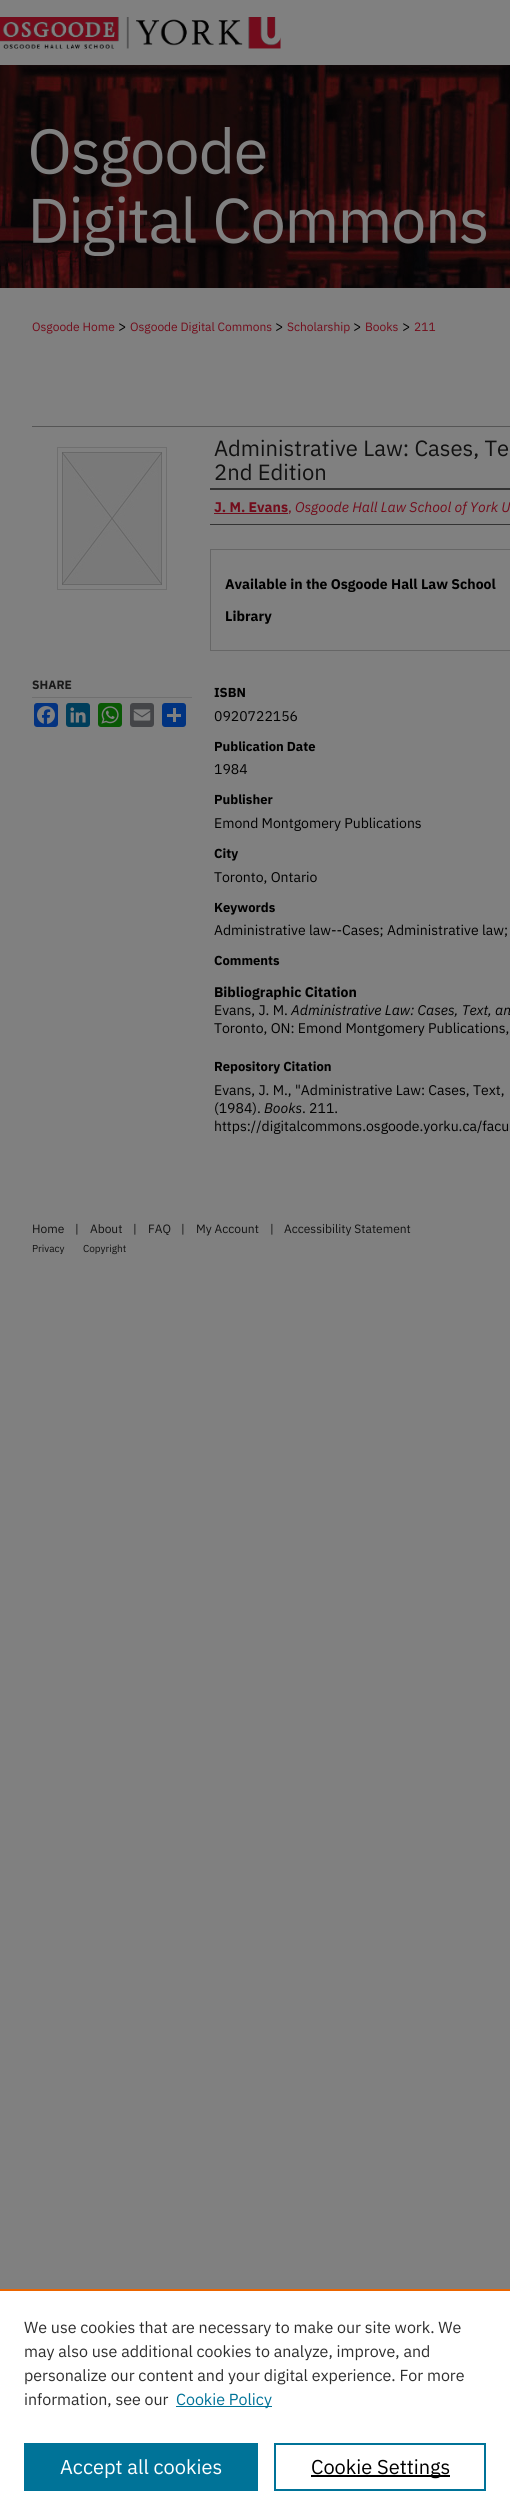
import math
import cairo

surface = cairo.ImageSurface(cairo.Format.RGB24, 510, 2515)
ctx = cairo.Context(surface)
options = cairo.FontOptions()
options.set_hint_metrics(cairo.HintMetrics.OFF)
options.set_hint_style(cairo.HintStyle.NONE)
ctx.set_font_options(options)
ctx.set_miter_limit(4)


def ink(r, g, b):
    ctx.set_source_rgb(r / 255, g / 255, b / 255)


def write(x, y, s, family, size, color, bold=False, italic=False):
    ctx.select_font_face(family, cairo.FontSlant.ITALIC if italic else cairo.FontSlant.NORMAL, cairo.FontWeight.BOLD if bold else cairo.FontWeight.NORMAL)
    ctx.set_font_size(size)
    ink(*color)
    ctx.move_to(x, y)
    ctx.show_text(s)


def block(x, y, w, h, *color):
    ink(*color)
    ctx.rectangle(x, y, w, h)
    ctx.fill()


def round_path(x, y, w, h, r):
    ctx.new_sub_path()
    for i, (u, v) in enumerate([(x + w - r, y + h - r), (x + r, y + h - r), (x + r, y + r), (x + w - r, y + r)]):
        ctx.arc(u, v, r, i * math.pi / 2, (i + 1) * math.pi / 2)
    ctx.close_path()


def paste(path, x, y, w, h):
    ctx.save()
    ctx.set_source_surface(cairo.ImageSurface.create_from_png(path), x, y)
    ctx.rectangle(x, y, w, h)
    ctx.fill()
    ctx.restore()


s1 = dict(family="IBM Plex Sans", size=12, color=(114, 12, 27))
s2 = dict(family="IBM Plex Sans", size=14, color=(0, 0, 0))
s3 = dict(family="IBM Plex Sans", size=12, color=(26, 26, 26), bold=True)
s4 = dict(family="IBM Plex Sans", size=22, color=(17, 17, 17))
s5 = dict(family="IBM Plex Sans", size=14, color=(114, 12, 27), bold=True)
s6 = dict(family="IBM Plex Sans", size=14, color=(114, 12, 27))
s7 = dict(family="IBM Plex Sans", size=14, color=(114, 12, 27), italic=True)
s8 = dict(family="IBM Plex Sans", size=14, color=(0, 0, 0), bold=True)
s9 = dict(family="IBM Plex Sans", size=13, color=(0, 0, 0), bold=True)
s10 = dict(family="IBM Plex Sans", size=14, color=(0, 0, 0), italic=True)
s11 = dict(family="IBM Plex Sans", size=12, color=(17, 17, 17))
s12 = dict(family="IBM Plex Sans", size=10, color=(17, 17, 17))
s13 = dict(family="IBM Plex Sans", size=16, color=(46, 46, 46))
s14 = dict(family="IBM Plex Sans", size=16, color=(0, 115, 152))
s15 = dict(family="IBM Plex Sans", size=20, color=(255, 255, 255))
s16 = dict(family="IBM Plex Sans", size=20, color=(0, 0, 0))

ink(128, 128, 128)
ctx.paint()
paste("pic1.png", 0, 17, 281, 32)
paste("pic2.png", 0, 65, 510, 223)
paste("pic3.png", 31, 127, 455, 129)
write(32, 331, "Osgoode Home", **s1)
write(118, 331, ">", **s2)
write(130, 331, "Osgoode Digital Commons", **s1)
write(275, 331, ">", **s2)
write(287, 331, "Scholarship", **s1)
write(353, 331, ">", **s2)
write(365, 331, "Books", **s1)
write(402, 331, ">", **s2)
write(414, 331, "211", **s1)
ctx.rectangle(57.5, 447.5, 109, 142)
ink(111, 111, 111)
ctx.set_line_width(1)
ctx.stroke()
paste("pic4.png", 62, 452, 100, 133)
block(32, 697, 160, 1, 111, 111, 111)
write(32, 689, "SHARE", **s3)
ink(4, 51, 128)
round_path(34, 703, 24, 24, 3)
ctx.fill()
paste("pic5.png", 37, 706, 18, 18)
ink(0, 62, 91)
round_path(66, 703, 24, 24, 3)
ctx.fill()
paste("pic6.png", 70, 707, 16, 16)
ink(9, 88, 5)
round_path(98, 703, 24, 24, 3)
ctx.fill()
paste("pic7.png", 101, 706, 18, 18)
ink(68, 69, 72)
round_path(130, 703, 24, 24, 3)
ctx.fill()
paste("pic8.png", 133, 709, 18, 12)
ink(1, 51, 128)
round_path(162, 703, 24, 24, 3)
ctx.fill()
block(173, 708, 3, 14, 128, 128, 128)
block(167, 714, 14, 3, 128, 128, 128)
block(32, 426, 478, 1, 85, 85, 85)
write(214, 456, "Administrative Law: Cases, Te", **s4)
write(214, 480, "2nd Edition", **s4)
block(210, 488, 300, 2, 51, 51, 51)
block(210, 524, 300, 1, 51, 51, 51)
write(214, 512, "J. M. Evans", **s5)
block(214, 513, 74, 1, 114, 12, 27)
write(288, 512, ",", **s6)
write(295, 512, "Osgoode Hall Law School of York U", **s7)
ctx.rectangle(210.5, 549.5, 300, 101)
ink(102, 102, 102)
ctx.stroke()
write(225, 589, "Available in the Osgoode Hall Law School", **s8)
write(225, 621, "Library", **s8)
write(214, 697, "ISBN", **s9)
write(214, 721, "0920722156", **s2)
write(214, 751, "Publication Date", **s9)
write(214, 774, "1984", **s2)
write(214, 804, "Publisher", **s9)
write(214, 828, "Emond Montgomery Publications", **s2)
write(214, 858, "City", **s9)
write(214, 882, "Toronto, Ontario", **s2)
write(214, 912, "Keywords", **s9)
write(214, 935, "Administrative law--Cases; Administrative law;", **s2)
write(214, 965, "Comments", **s9)
write(214, 997, "Bibliographic Citation", **s8)
write(214, 1015, "Evans, J. M.", **s2)
write(291, 1015, "Administrative Law: Cases, Text, an", **s10)
write(214, 1033, "Toronto, ON: Emond Montgomery Publications,", **s2)
write(214, 1071, "Repository Citation", **s9)
write(214, 1095, "Evans, J. M., \"Administrative Law: Cases, Text,", **s2)
write(214, 1113, "(1984).", **s2)
write(264, 1113, "Books", **s10)
write(302, 1113, ". 211.", **s2)
write(214, 1131, "https://digitalcommons.osgoode.yorku.ca/facu", **s2)
write(32, 1233, "Home", **s11)
write(75, 1233, "|", **s11)
write(90, 1233, "About", **s11)
write(133, 1233, "|", **s11)
write(148, 1233, "FAQ", **s11)
write(181, 1233, "|", **s11)
write(196, 1233, "My Account", **s11)
write(270, 1233, "|", **s11)
write(284, 1233, "Accessibility Statement", **s11)
write(32, 1252, "Privacy", **s12)
write(83, 1252, "Copyright", **s12)
block(0, 2291, 510, 224, 255, 255, 255)
block(0, 2289, 510, 2, 235, 101, 0)
write(24, 2333, "We use cookies that are necessary to make our site work. We", **s13)
write(24, 2357, "may also use additional cookies to analyze, improve, and", **s13)
write(24, 2381, "personalize our content and your digital experience. For more", **s13)
write(24, 2405, "information, see our", **s13)
block(176, 2406, 96, 1, 0, 115, 152)
write(176, 2405, "Cookie Policy", **s14)
block(24, 2443, 234, 48, 0, 115, 152)
write(60, 2474, "Accept all cookies", **s15)
ctx.rectangle(275, 2444, 210, 46)
ink(0, 115, 152)
ctx.set_line_width(2)
ctx.stroke()
block(311, 2475, 139, 2, 0, 0, 0)
write(311, 2474, "Cookie Settings", **s16)
surface.write_to_png("screenshot.png")
